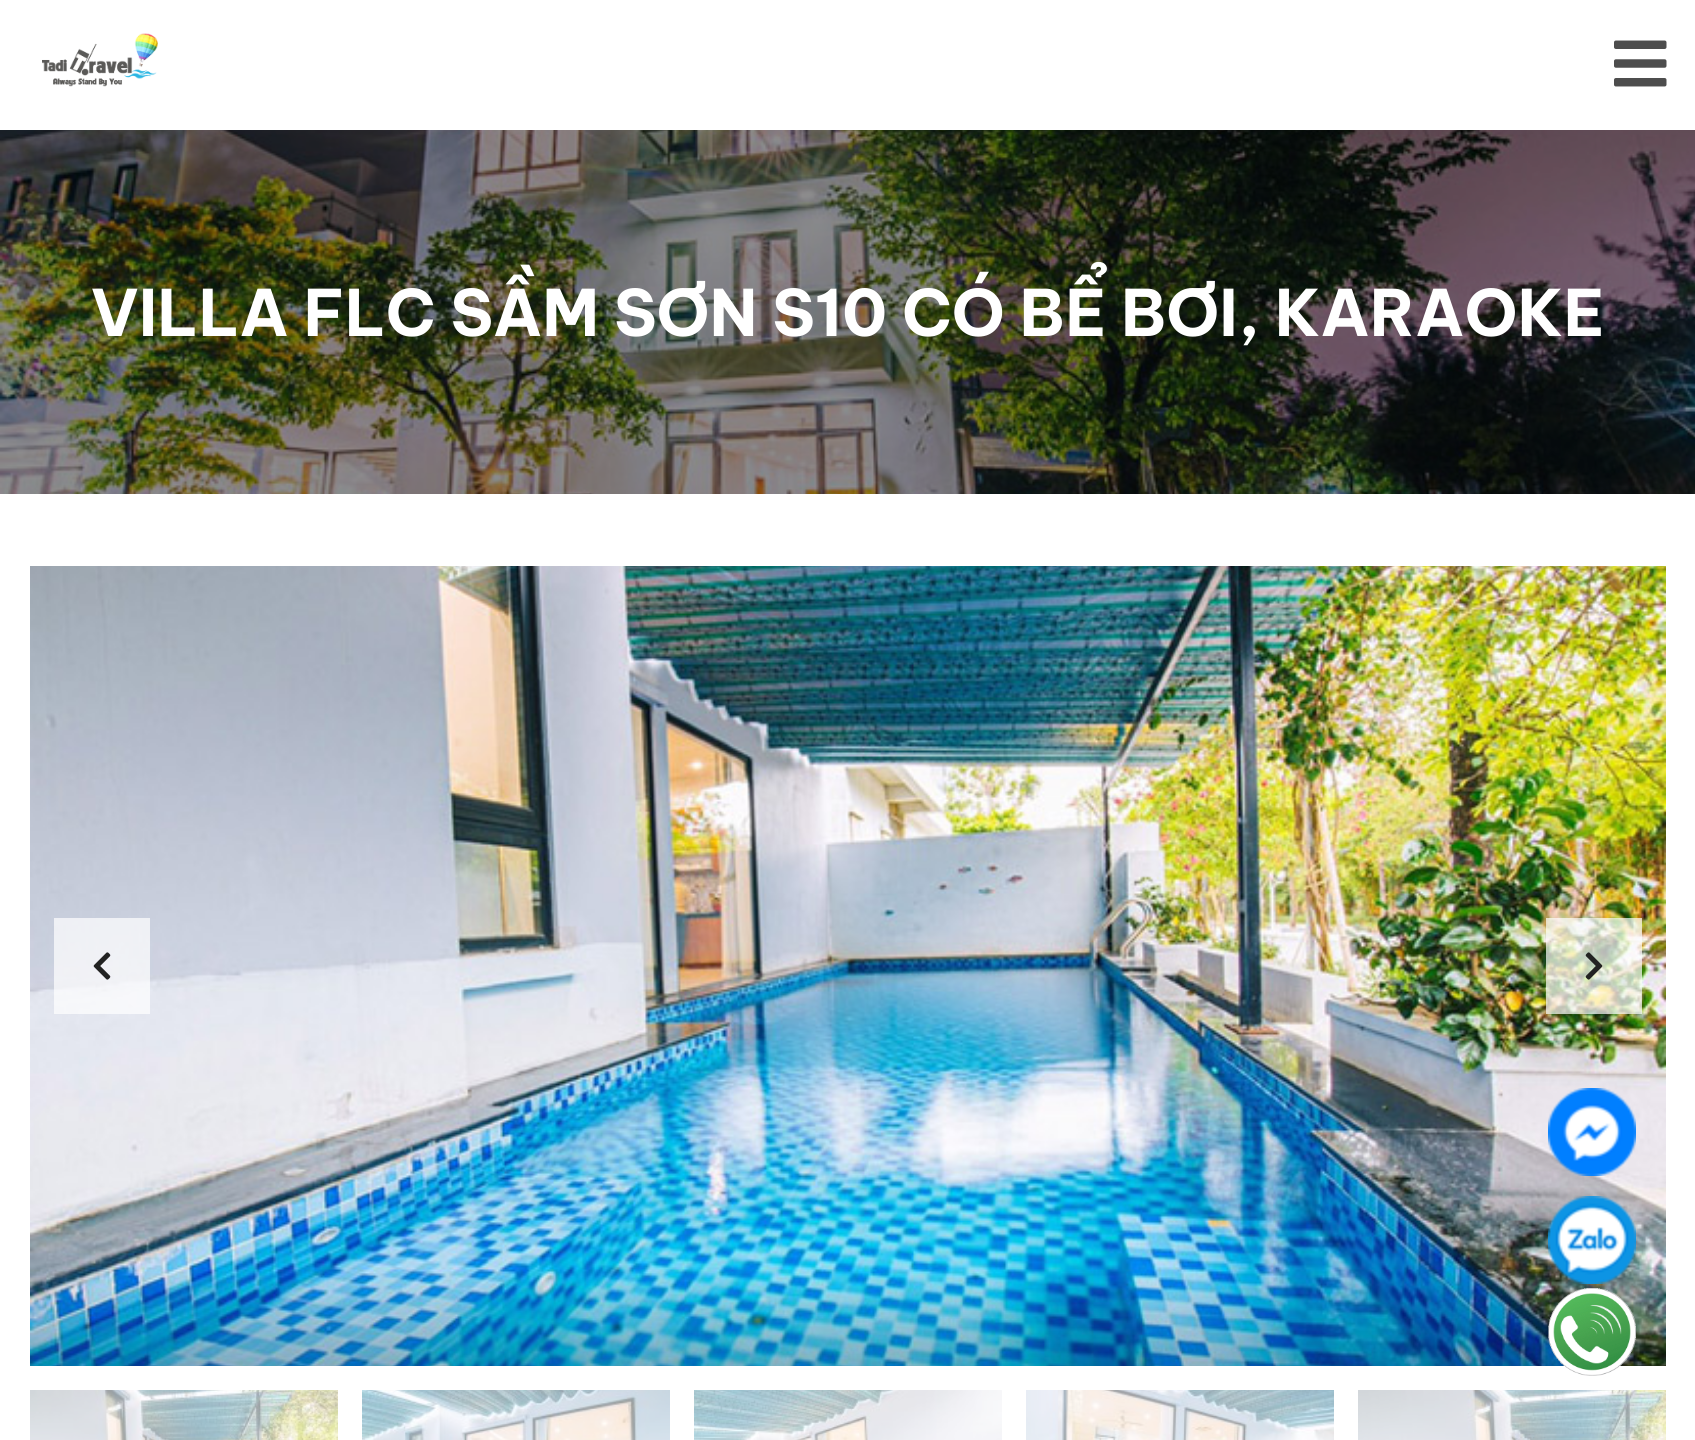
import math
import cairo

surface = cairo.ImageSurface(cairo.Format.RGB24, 1695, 1440)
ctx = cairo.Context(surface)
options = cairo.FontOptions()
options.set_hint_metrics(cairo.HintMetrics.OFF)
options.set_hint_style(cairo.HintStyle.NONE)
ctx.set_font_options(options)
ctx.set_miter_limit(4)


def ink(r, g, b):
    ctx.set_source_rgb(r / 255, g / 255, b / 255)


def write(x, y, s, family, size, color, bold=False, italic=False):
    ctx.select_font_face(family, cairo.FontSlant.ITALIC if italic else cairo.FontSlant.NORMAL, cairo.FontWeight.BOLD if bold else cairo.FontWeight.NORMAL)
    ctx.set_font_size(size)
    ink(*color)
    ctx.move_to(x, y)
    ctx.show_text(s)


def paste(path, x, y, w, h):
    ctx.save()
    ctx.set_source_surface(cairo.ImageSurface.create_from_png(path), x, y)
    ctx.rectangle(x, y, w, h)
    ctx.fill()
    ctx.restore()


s1 = dict(family="Be Vietnam Pro", size=64, color=(255, 255, 255), bold=True)

ink(255, 255, 255)
ctx.paint()
paste("pic1.png", 42, 33, 116, 54)
paste("pic2.png", 1614, 40, 53, 47)
paste("pic3.png", 0, 130, 1695, 364)
write(91, 336, "VILLA FLC SẦM SƠN S10 CÓ BỂ BƠI, KARAOKE", **s1)
paste("pic4.png", 30, 566, 1636, 800)
ctx.set_source_rgba(1, 1, 1, 0.7)
ctx.rectangle(54, 918, 96, 96)
ctx.fill()
paste("pic5.png", 93, 952, 18, 28)
ctx.rectangle(1546, 918, 96, 96)
ctx.fill()
paste("pic6.png", 1585, 952, 18, 28)
paste("pic7.png", 30, 1390, 308, 50)
paste("pic8.png", 362, 1390, 308, 50)
paste("pic9.png", 694, 1390, 308, 50)
paste("pic10.png", 1026, 1390, 308, 50)
paste("pic11.png", 1358, 1390, 308, 50)
paste("pic12.png", 1548, 1088, 88, 88)
paste("pic13.png", 1548, 1196, 88, 88)
paste("pic14.png", 1548, 1288, 88, 88)
surface.write_to_png("screenshot.png")
